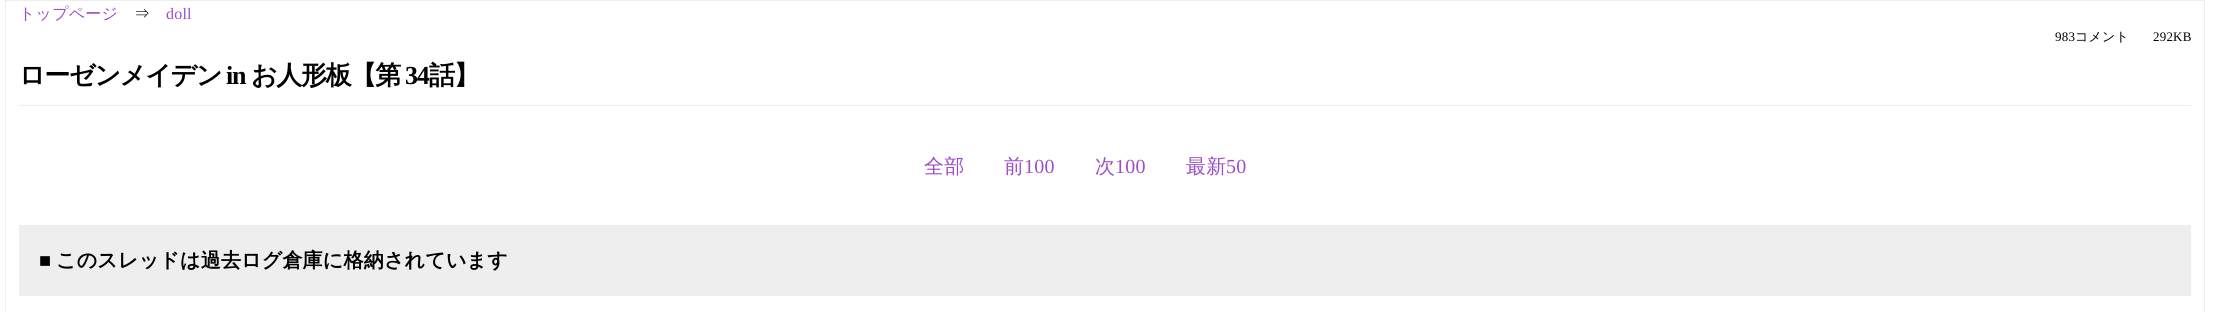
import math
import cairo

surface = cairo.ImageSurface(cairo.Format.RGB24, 2234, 312)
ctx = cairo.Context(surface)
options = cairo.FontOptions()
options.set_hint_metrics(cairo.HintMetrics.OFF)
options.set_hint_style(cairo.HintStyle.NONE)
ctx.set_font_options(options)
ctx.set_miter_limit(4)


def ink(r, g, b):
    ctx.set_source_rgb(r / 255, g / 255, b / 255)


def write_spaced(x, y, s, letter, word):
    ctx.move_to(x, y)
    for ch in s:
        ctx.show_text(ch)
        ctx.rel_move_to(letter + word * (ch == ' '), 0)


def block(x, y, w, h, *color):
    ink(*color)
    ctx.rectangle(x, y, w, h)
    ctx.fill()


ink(255, 255, 255)
ctx.paint()
ctx.rectangle(5.5, 0.5, 2199, 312)
ink(238, 238, 238)
ctx.set_line_width(1)
ctx.stroke()
ctx.select_font_face("WenQuanYi Zen Hei Medium")
ctx.set_font_size(16)
ink(155, 77, 202)
write_spaced(19, 19, "トップページ", 0.2, 0)
ink(0, 0, 0)
write_spaced(134, 19, "⇒", 0.2, 0)
ctx.select_font_face("Liberation Serif")
ink(155, 77, 202)
write_spaced(166, 19, "doll", 0.2, 0)
ctx.set_font_size(13)
ink(0, 0, 0)
write_spaced(2055, 41, "983", 0.2, 0)
ctx.select_font_face("WenQuanYi Zen Hei Medium")
write_spaced(2075, 41, "コメント", 0.2, 0)
ctx.select_font_face("Liberation Serif")
write_spaced(2153, 41, "292KB", 0.2, 0)
block(19, 105, 2172, 1, 238, 238, 238)
ctx.select_font_face("WenQuanYi Zen Hei", cairo.FontSlant.NORMAL, cairo.FontWeight.BOLD)
ctx.set_font_size(26)
ink(0, 0, 0)
write_spaced(19, 84, "ローゼンメイデン", -1.25, 0)
ctx.select_font_face("Liberation Serif", cairo.FontSlant.NORMAL, cairo.FontWeight.BOLD)
write_spaced(226, 84, "in", -1.25, 0)
ctx.select_font_face("WenQuanYi Zen Hei", cairo.FontSlant.NORMAL, cairo.FontWeight.BOLD)
write_spaced(251, 84, "お人形板【第", -1.25, 0)
ctx.select_font_face("Liberation Serif", cairo.FontSlant.NORMAL, cairo.FontWeight.BOLD)
write_spaced(405, 84, "34", -1.25, 0)
ctx.select_font_face("WenQuanYi Zen Hei", cairo.FontSlant.NORMAL, cairo.FontWeight.BOLD)
write_spaced(429, 84, "話】", -1.25, 0)
ctx.select_font_face("WenQuanYi Zen Hei Medium")
ctx.set_font_size(20)
ink(155, 77, 202)
write_spaced(924, 173, "全部", 0.2, 0)
write_spaced(1004, 173, "前", 0.2, 0)
ctx.select_font_face("Liberation Serif")
write_spaced(1024, 173, "100", 0.2, 0)
ctx.select_font_face("WenQuanYi Zen Hei Medium")
write_spaced(1095, 173, "次", 0.2, 0)
ctx.select_font_face("Liberation Serif")
write_spaced(1115, 173, "100", 0.2, 0)
ctx.select_font_face("WenQuanYi Zen Hei Medium")
write_spaced(1186, 173, "最新", 0.2, 0)
ctx.select_font_face("Liberation Serif")
write_spaced(1226, 173, "50", 0.2, 0)
block(19, 225, 2172, 71, 238, 238, 238)
ctx.select_font_face("Liberation Serif", cairo.FontSlant.NORMAL, cairo.FontWeight.BOLD)
ink(0, 0, 0)
write_spaced(39, 267, "■", 0.2, 0)
ctx.select_font_face("WenQuanYi Zen Hei", cairo.FontSlant.NORMAL, cairo.FontWeight.BOLD)
write_spaced(56, 267, "このスレッドは過去ログ倉庫に格納されています", 0.2, 0)
surface.write_to_png("screenshot.png")
